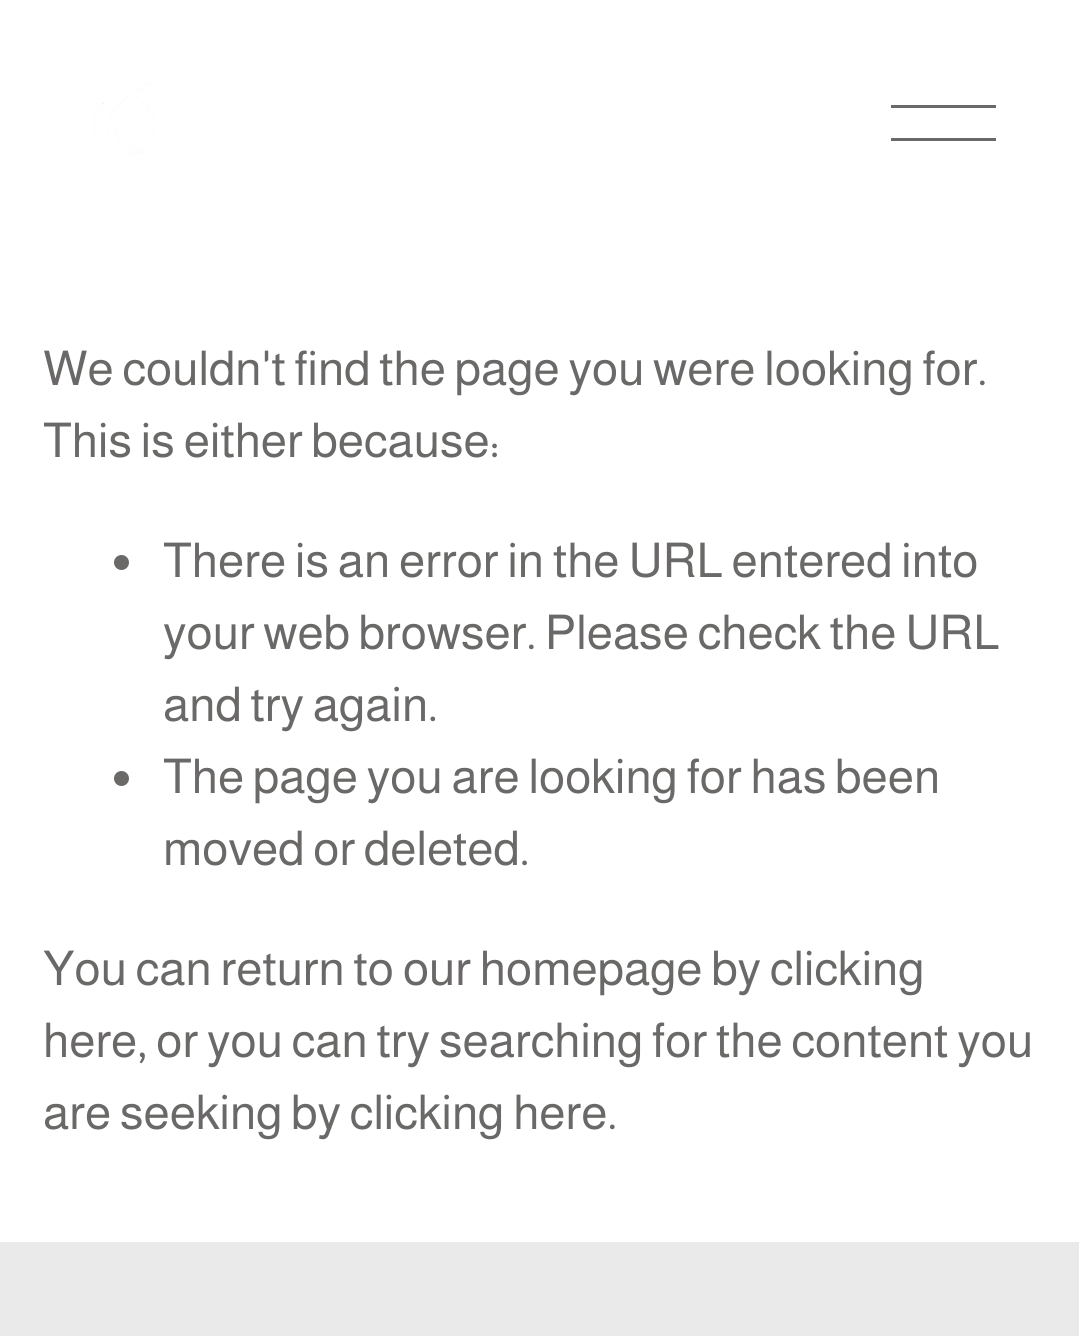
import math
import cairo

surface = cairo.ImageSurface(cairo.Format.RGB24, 1079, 1336)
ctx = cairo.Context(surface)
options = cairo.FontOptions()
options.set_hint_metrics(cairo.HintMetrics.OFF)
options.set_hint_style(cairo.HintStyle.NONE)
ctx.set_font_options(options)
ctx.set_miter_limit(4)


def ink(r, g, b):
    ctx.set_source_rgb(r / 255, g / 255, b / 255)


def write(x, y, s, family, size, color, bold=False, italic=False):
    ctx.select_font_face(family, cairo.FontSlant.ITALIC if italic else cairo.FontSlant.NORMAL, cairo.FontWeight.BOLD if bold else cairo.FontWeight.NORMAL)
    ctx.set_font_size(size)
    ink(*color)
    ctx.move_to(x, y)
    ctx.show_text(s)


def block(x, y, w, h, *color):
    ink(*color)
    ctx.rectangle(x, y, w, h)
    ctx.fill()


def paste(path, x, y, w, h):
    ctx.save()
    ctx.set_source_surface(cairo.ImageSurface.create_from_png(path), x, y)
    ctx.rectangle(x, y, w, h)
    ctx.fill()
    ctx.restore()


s1 = dict(family="Almarai", size=48, color=(106, 105, 104))

ink(255, 255, 255)
ctx.paint()
paste("pic1.png", 92, 83, 64, 75)
block(891, 105, 105, 3, 106, 105, 104)
block(891, 138, 105, 3, 106, 105, 104)
write(43, 385, "We couldn't find the page you were looking for.", **s1)
write(43, 457, "This is either because:", **s1)
ctx.new_path()
ctx.arc(121.5, 562.5, 7.5, 0, 2 * math.pi)
ctx.fill()
write(163, 577, "There is an error in the URL entered into", **s1)
write(163, 649, "your web browser. Please check the URL", **s1)
write(163, 721, "and try again.", **s1)
ctx.new_path()
ctx.arc(121.5, 778.5, 7.5, 0, 2 * math.pi)
ctx.fill()
write(163, 793, "The page you are looking for has been", **s1)
write(163, 865, "moved or deleted.", **s1)
write(43, 985, "You can return to our homepage by clicking", **s1)
write(43, 1057, "here, or you can try searching for the content you", **s1)
write(43, 1129, "are seeking by clicking here.", **s1)
block(0, 1242, 1079, 94, 235, 234, 235)
surface.write_to_png("screenshot.png")
